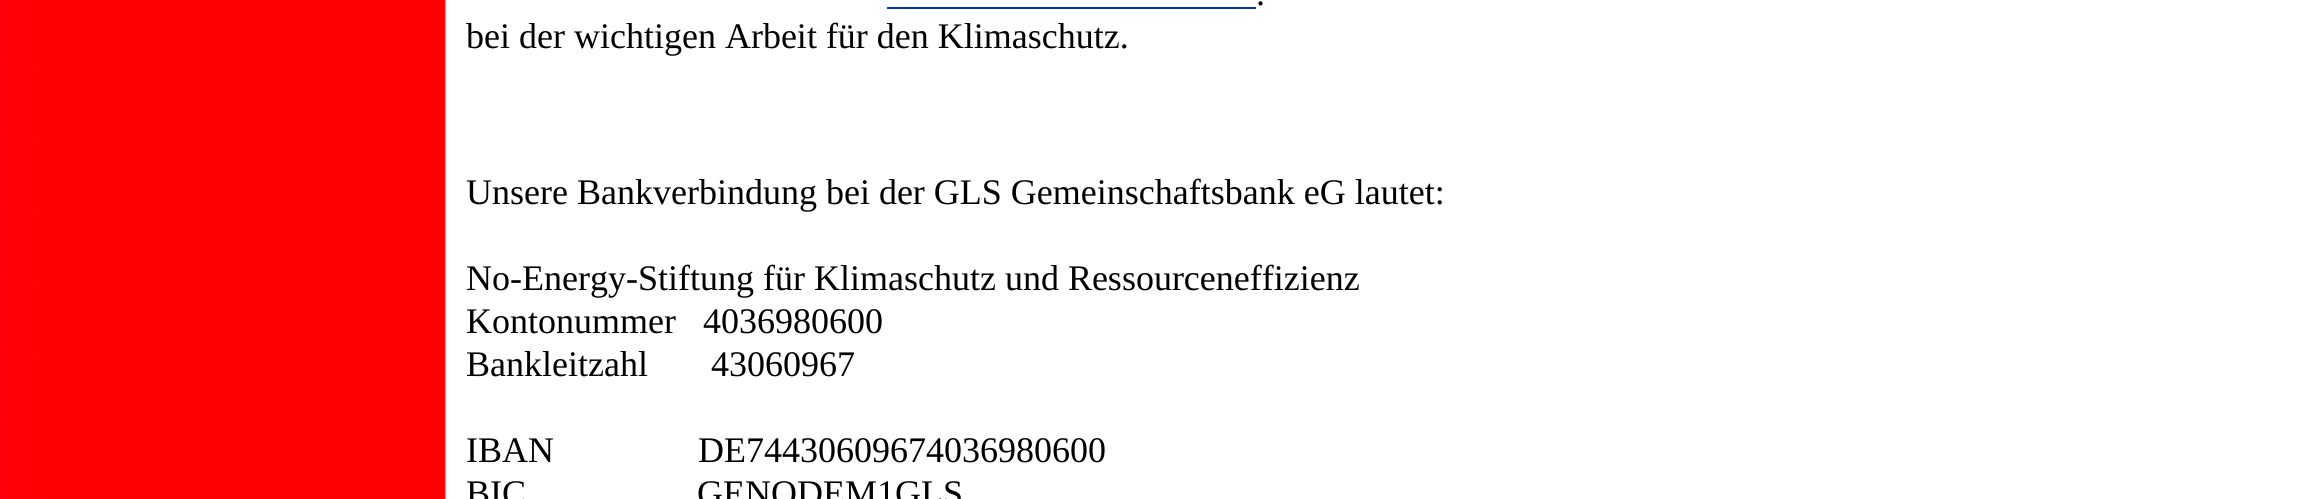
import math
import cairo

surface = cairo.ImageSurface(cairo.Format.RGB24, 2303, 499)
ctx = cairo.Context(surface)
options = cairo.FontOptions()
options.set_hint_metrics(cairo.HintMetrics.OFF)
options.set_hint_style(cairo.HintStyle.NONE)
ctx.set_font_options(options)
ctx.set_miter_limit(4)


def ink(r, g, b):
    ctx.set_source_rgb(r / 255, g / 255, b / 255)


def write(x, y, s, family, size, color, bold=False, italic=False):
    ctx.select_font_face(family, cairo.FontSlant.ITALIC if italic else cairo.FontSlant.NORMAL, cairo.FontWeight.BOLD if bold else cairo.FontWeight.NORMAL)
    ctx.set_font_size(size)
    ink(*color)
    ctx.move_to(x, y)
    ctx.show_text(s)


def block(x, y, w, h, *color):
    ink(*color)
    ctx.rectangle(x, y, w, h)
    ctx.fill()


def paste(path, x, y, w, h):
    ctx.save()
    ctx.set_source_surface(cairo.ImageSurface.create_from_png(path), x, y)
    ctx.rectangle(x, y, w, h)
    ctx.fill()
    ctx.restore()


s1 = dict(family="Liberation Serif", size=36, color=(0, 0, 0))

ink(255, 255, 255)
ctx.paint()
paste("pic1.png", 0, 0, 447, 499)
write(1256, 5, ".", **s1)
block(887, 7, 369, 2, 0, 51, 204)
write(466, 48, "bei der wichtigen Arbeit für den Klimaschutz.", **s1)
write(466, 204, "Unsere Bankverbindung bei der GLS Gemeinschaftsbank eG lautet:", **s1)
write(466, 290, "No-Energy-Stiftung für Klimaschutz und Ressourceneffizienz", **s1)
write(466, 333, "Kontonummer   4036980600", **s1)
write(466, 376, "Bankleitzahl       43060967", **s1)
write(466, 462, "IBAN                DE74430609674036980600", **s1)
write(466, 505, "BIC                   GENODEM1GLS", **s1)
surface.write_to_png("screenshot.png")
